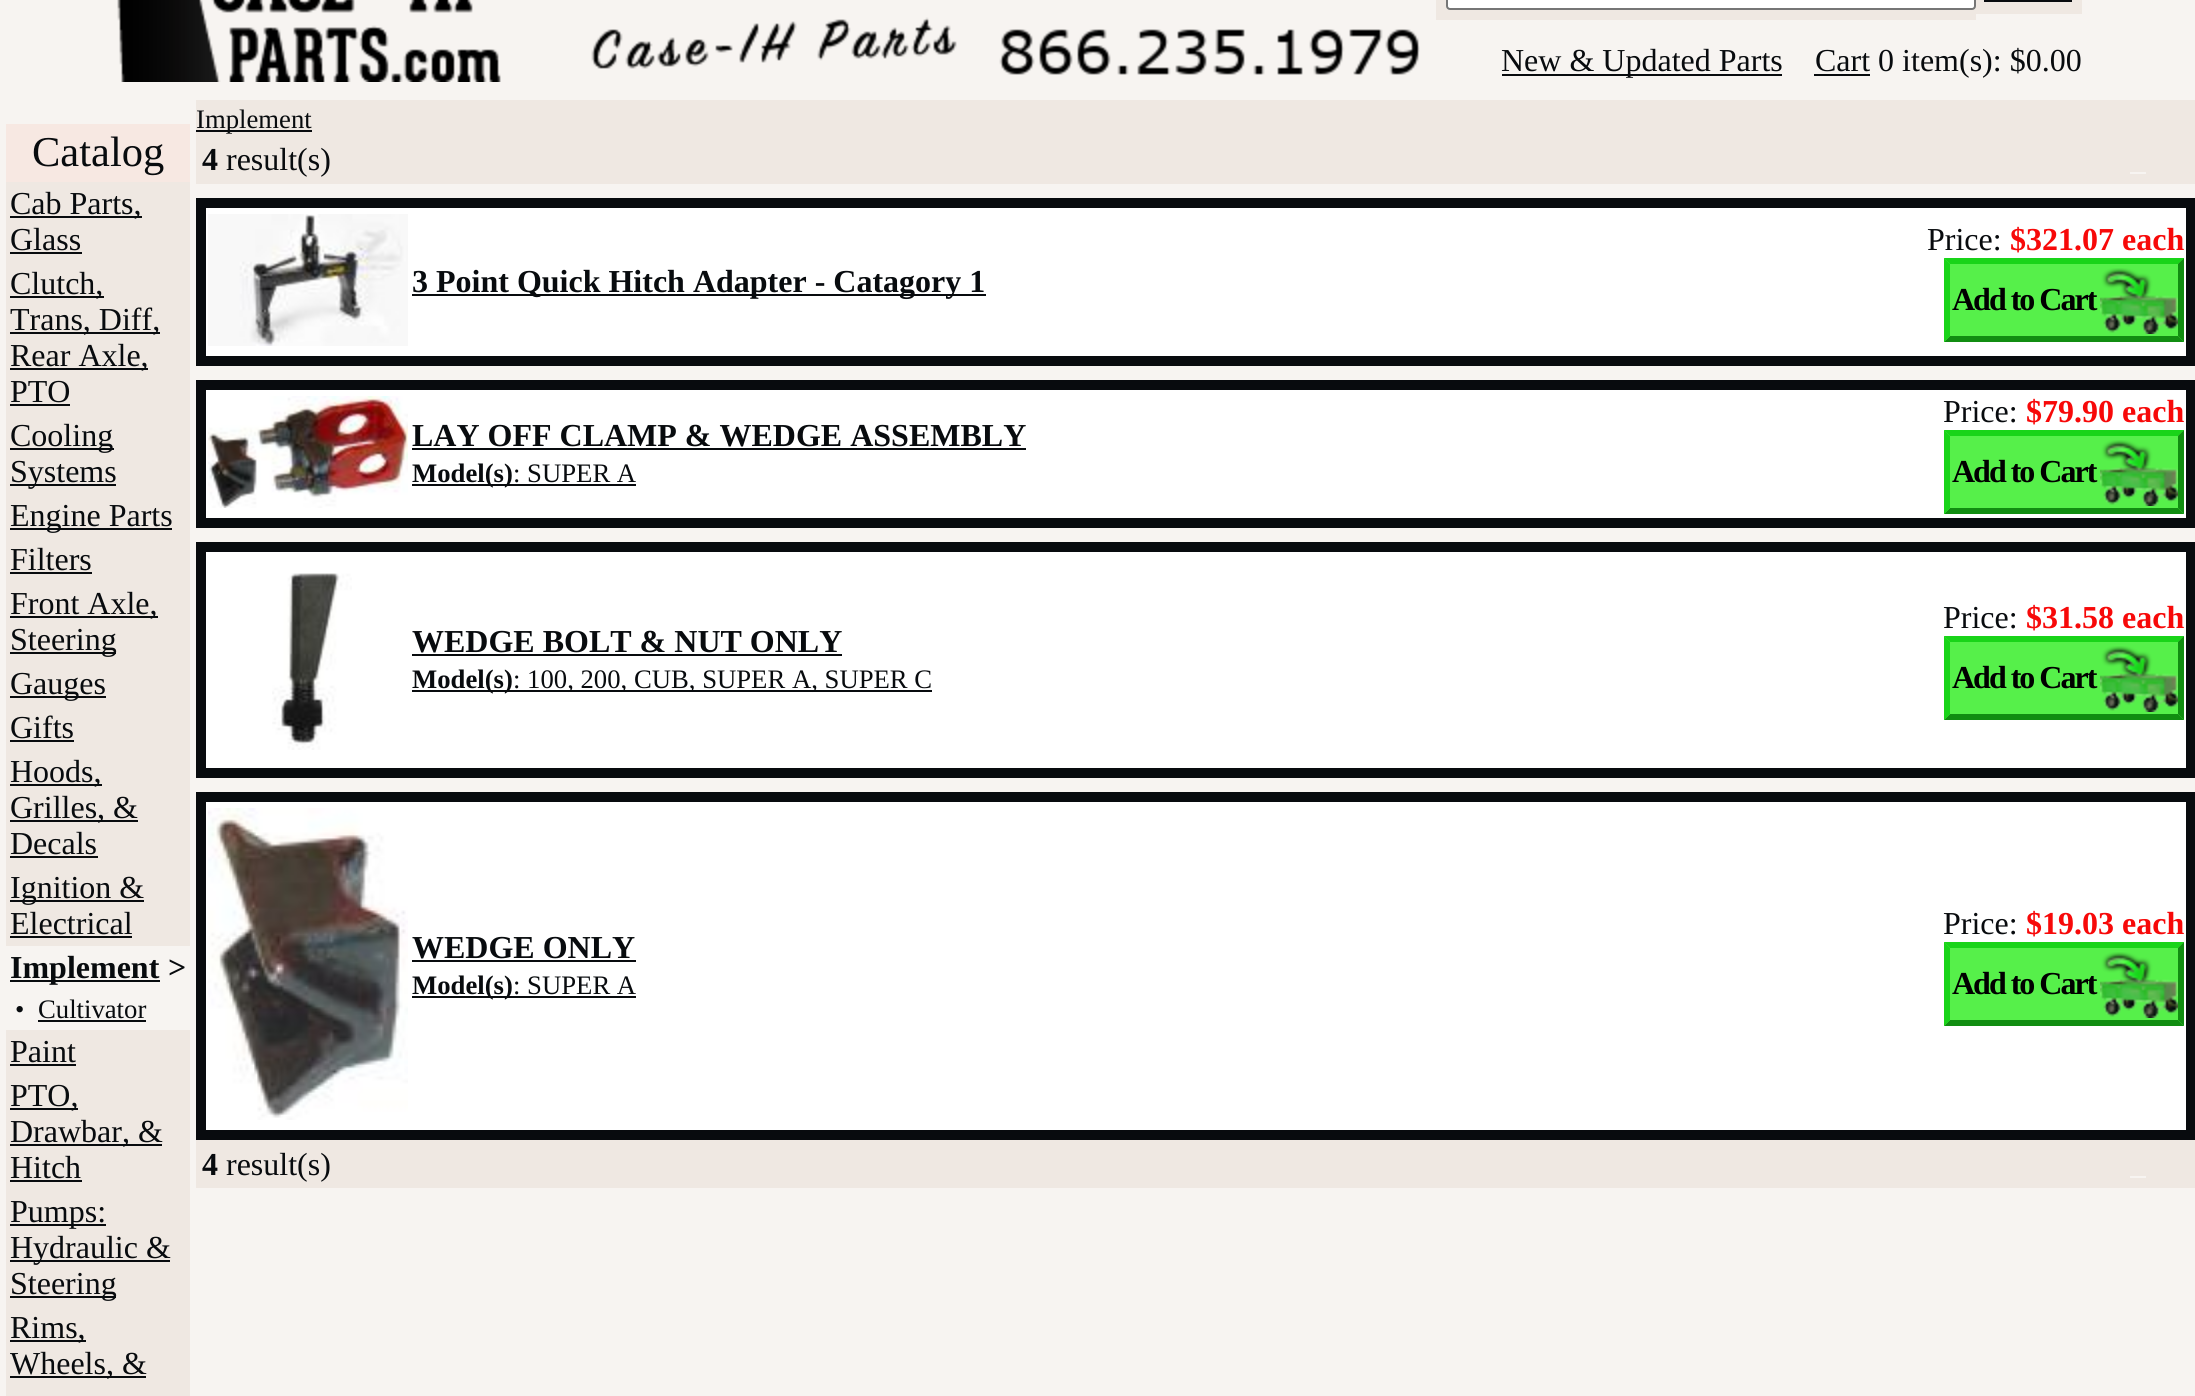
import math
import cairo

surface = cairo.ImageSurface(cairo.Format.RGB24, 2195, 1396)
ctx = cairo.Context(surface)
options = cairo.FontOptions()
options.set_hint_metrics(cairo.HintMetrics.OFF)
options.set_hint_style(cairo.HintStyle.NONE)
ctx.set_font_options(options)
ctx.set_miter_limit(4)


def ink(r, g, b):
    ctx.set_source_rgb(r / 255, g / 255, b / 255)


def write(x, y, s, family, size, color, bold=False, italic=False):
    ctx.select_font_face(family, cairo.FontSlant.ITALIC if italic else cairo.FontSlant.NORMAL, cairo.FontWeight.BOLD if bold else cairo.FontWeight.NORMAL)
    ctx.set_font_size(size)
    ink(*color)
    ctx.move_to(x, y)
    ctx.show_text(s)


def write_spaced(x, y, s, letter, word):
    ctx.move_to(x, y)
    for ch in s:
        ctx.show_text(ch)
        ctx.rel_move_to(letter + word * (ch == ' '), 0)


def block(x, y, w, h, *color):
    ink(*color)
    ctx.rectangle(x, y, w, h)
    ctx.fill()


def round_path(x, y, w, h, r):
    ctx.new_sub_path()
    for i, (u, v) in enumerate([(x + w - r, y + h - r), (x + r, y + h - r), (x + r, y + r), (x + w - r, y + r)]):
        ctx.arc(u, v, r, i * math.pi / 2, (i + 1) * math.pi / 2)
    ctx.close_path()


def paste(path, x, y, w, h):
    ctx.save()
    ctx.set_source_surface(cairo.ImageSurface.create_from_png(path), x, y)
    ctx.rectangle(x, y, w, h)
    ctx.fill()
    ctx.restore()


s1 = dict(family="Liberation Serif", size=32, color=(8, 11, 14))
s2 = dict(family="Liberation Serif", size=42.5, color=(8, 11, 14))
s3 = dict(family="Liberation Serif", size=32, color=(8, 11, 14), bold=True)
s4 = dict(family="Liberation Serif", size=26.7, color=(8, 11, 14))
s5 = dict(family="Liberation Serif", size=32, color=(247, 9, 9), bold=True)
s6 = dict(family="Liberation Serif", size=26.7, color=(8, 11, 14), bold=True)

ink(247, 244, 241)
ctx.paint()
paste("pic1.png", 117, 0, 1303, 82)
block(1436, 0, 540, 20, 239, 232, 226)
block(1976, 0, 106, 14, 239, 232, 226)
ink(255, 255, 255)
round_path(1447, -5, 528, 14, 3)
ctx.fill_preserve()
ink(118, 118, 118)
ctx.stroke()
block(1984, 0, 88, 2, 8, 11, 14)
block(1502, 74, 280, 2, 8, 11, 14)
write(1501, 71, "New & Updated Parts", **s1)
block(1814, 74, 56, 2, 8, 11, 14)
write(1815, 71, "Cart 0 item(s): $0.00", **s1)
block(6, 124, 184, 58, 247, 232, 226)
write(32, 166, "Catalog", **s2)
block(6, 182, 184, 764, 239, 232, 226)
block(10, 216, 132, 2, 8, 11, 14)
write(10, 214, "Cab Parts,", **s1)
write(10, 250, "Glass", **s1)
block(10, 252, 72, 2, 8, 11, 14)
block(10, 296, 94, 2, 8, 11, 14)
write(10, 294, "Clutch,", **s1)
block(10, 332, 150, 2, 8, 11, 14)
write(10, 330, "Trans, Diff,", **s1)
block(10, 368, 138, 2, 8, 11, 14)
write(10, 366, "Rear Axle,", **s1)
write(10, 402, "PTO", **s1)
block(10, 404, 60, 2, 8, 11, 14)
block(10, 448, 104, 2, 8, 11, 14)
write(10, 446, "Cooling", **s1)
block(10, 484, 106, 2, 8, 11, 14)
write(10, 482, "Systems", **s1)
block(10, 528, 162, 2, 8, 11, 14)
write(10, 526, "Engine Parts", **s1)
write(10, 570, "Filters", **s1)
block(10, 572, 82, 2, 8, 11, 14)
block(10, 616, 148, 2, 8, 11, 14)
write(10, 614, "Front Axle,", **s1)
block(10, 652, 106, 2, 8, 11, 14)
write(10, 650, "Steering", **s1)
block(10, 696, 96, 2, 8, 11, 14)
write(10, 694, "Gauges", **s1)
write(10, 738, "Gifts", **s1)
block(10, 740, 64, 2, 8, 11, 14)
block(10, 784, 92, 2, 8, 11, 14)
write(10, 782, "Hoods,", **s1)
block(10, 820, 128, 2, 8, 11, 14)
write(10, 818, "Grilles, &", **s1)
write(10, 854, "Decals", **s1)
block(10, 856, 88, 2, 8, 11, 14)
block(10, 900, 134, 2, 8, 11, 14)
write(10, 898, "Ignition &", **s1)
write(10, 934, "Electrical", **s1)
block(10, 936, 122, 2, 8, 11, 14)
block(10, 980, 150, 2, 8, 11, 14)
write(10, 978, "Implement", **s3)
write(168, 978, ">", **s3)
write(15, 1018, "•", **s4)
write(38, 1018, "Cultivator", **s4)
block(38, 1020, 108, 2, 8, 11, 14)
block(6, 1030, 184, 366, 239, 232, 226)
write(10, 1062, "Paint", **s1)
block(10, 1064, 66, 2, 8, 11, 14)
block(10, 1108, 68, 2, 8, 11, 14)
write(10, 1106, "PTO,", **s1)
block(10, 1144, 152, 2, 8, 11, 14)
write(10, 1142, "Drawbar, &", **s1)
write(10, 1178, "Hitch", **s1)
block(10, 1180, 72, 2, 8, 11, 14)
block(10, 1224, 96, 2, 8, 11, 14)
write(10, 1222, "Pumps:", **s1)
block(10, 1260, 160, 2, 8, 11, 14)
write(10, 1258, "Hydraulic &", **s1)
block(10, 1296, 106, 2, 8, 11, 14)
write(10, 1294, "Steering", **s1)
block(10, 1340, 76, 2, 8, 11, 14)
write(10, 1338, "Rims,", **s1)
block(10, 1376, 136, 2, 8, 11, 14)
write(10, 1374, "Wheels, &", **s1)
block(196, 100, 1999, 84, 239, 232, 226)
block(196, 130, 116, 2, 8, 11, 14)
write(196, 128, "Implement", **s4)
write(202, 170, "4", **s3)
write(226, 170, "result(s)", **s1)
block(2130, 172, 16, 2, 247, 244, 241)
block(206, 208, 1980, 148, 255, 255, 255)
block(206, 198, 1980, 10, 8, 11, 14)
block(206, 356, 1989, 10, 8, 11, 14)
block(196, 198, 10, 168, 8, 11, 14)
paste("pic2.png", 208, 214, 200, 132)
block(412, 294, 574, 2, 8, 11, 14)
write(412, 292, "3 Point Quick Hitch Adapter - Catagory 1", **s3)
block(2186, 198, 9, 158, 8, 11, 14)
write(1927, 250, "Price:", **s1)
write(2010, 250, "$321.07 each", **s5)
block(1944, 258, 240, 84, 86, 240, 74)
paste("pic3.png", 2100, 268, 78, 66)
ink(25, 212, 25)
ctx.new_path()
ctx.move_to(1944, 258)
ctx.line_to(2184, 258)
ctx.line_to(2178, 264)
ctx.line_to(1950, 264)
ctx.close_path()
ctx.fill()
ink(17, 141, 17)
ctx.new_path()
ctx.move_to(2184, 258)
ctx.line_to(2184, 342)
ctx.line_to(2178, 336)
ctx.line_to(2178, 264)
ctx.close_path()
ctx.fill()
ctx.new_path()
ctx.move_to(2184, 342)
ctx.line_to(1944, 342)
ctx.line_to(1950, 336)
ctx.line_to(2178, 336)
ctx.close_path()
ctx.fill()
ink(25, 212, 25)
ctx.new_path()
ctx.move_to(1944, 342)
ctx.line_to(1944, 258)
ctx.line_to(1950, 264)
ctx.line_to(1950, 336)
ctx.close_path()
ctx.fill()
ink(0, 0, 0)
write_spaced(1952, 310, "Add to Cart", -2, 0)
block(206, 390, 1980, 128, 255, 255, 255)
block(206, 380, 1980, 10, 8, 11, 14)
block(206, 518, 1989, 10, 8, 11, 14)
block(196, 380, 10, 148, 8, 11, 14)
paste("pic4.png", 208, 396, 200, 112)
write(412, 446, "LAY OFF CLAMP & WEDGE ASSEMBLY", **s3)
block(412, 448, 614, 2, 8, 11, 14)
block(412, 484, 224, 2, 8, 11, 14)
write(412, 482, "Model(s)", **s6)
write(513, 482, ": SUPER A", **s4)
block(2186, 380, 9, 138, 8, 11, 14)
write(1943, 422, "Price:", **s1)
write(2026, 422, "$79.90 each", **s5)
block(1944, 430, 240, 84, 86, 240, 74)
paste("pic3.png", 2100, 440, 78, 66)
ink(25, 212, 25)
ctx.new_path()
ctx.move_to(1944, 430)
ctx.line_to(2184, 430)
ctx.line_to(2178, 436)
ctx.line_to(1950, 436)
ctx.close_path()
ctx.fill()
ink(17, 141, 17)
ctx.new_path()
ctx.move_to(2184, 430)
ctx.line_to(2184, 514)
ctx.line_to(2178, 508)
ctx.line_to(2178, 436)
ctx.close_path()
ctx.fill()
ctx.new_path()
ctx.move_to(2184, 514)
ctx.line_to(1944, 514)
ctx.line_to(1950, 508)
ctx.line_to(2178, 508)
ctx.close_path()
ctx.fill()
ink(25, 212, 25)
ctx.new_path()
ctx.move_to(1944, 514)
ctx.line_to(1944, 430)
ctx.line_to(1950, 436)
ctx.line_to(1950, 508)
ctx.close_path()
ctx.fill()
ink(0, 0, 0)
write_spaced(1952, 482, "Add to Cart", -2, 0)
block(206, 552, 1980, 216, 255, 255, 255)
block(206, 542, 1980, 10, 8, 11, 14)
block(206, 768, 1989, 10, 8, 11, 14)
block(196, 542, 10, 236, 8, 11, 14)
paste("pic5.png", 272, 573, 80, 177)
write(412, 652, "WEDGE BOLT & NUT ONLY", **s3)
block(412, 654, 430, 2, 8, 11, 14)
block(412, 690, 520, 2, 8, 11, 14)
write(412, 688, "Model(s)", **s6)
write(513, 688, ": 100, 200, CUB, SUPER A, SUPER C", **s4)
block(2186, 542, 9, 226, 8, 11, 14)
write(1943, 628, "Price:", **s1)
write(2026, 628, "$31.58 each", **s5)
block(1944, 636, 240, 84, 86, 240, 74)
paste("pic3.png", 2100, 646, 78, 66)
ink(25, 212, 25)
ctx.new_path()
ctx.move_to(1944, 636)
ctx.line_to(2184, 636)
ctx.line_to(2178, 642)
ctx.line_to(1950, 642)
ctx.close_path()
ctx.fill()
ink(17, 141, 17)
ctx.new_path()
ctx.move_to(2184, 636)
ctx.line_to(2184, 720)
ctx.line_to(2178, 714)
ctx.line_to(2178, 642)
ctx.close_path()
ctx.fill()
ctx.new_path()
ctx.move_to(2184, 720)
ctx.line_to(1944, 720)
ctx.line_to(1950, 714)
ctx.line_to(2178, 714)
ctx.close_path()
ctx.fill()
ink(25, 212, 25)
ctx.new_path()
ctx.move_to(1944, 720)
ctx.line_to(1944, 636)
ctx.line_to(1950, 642)
ctx.line_to(1950, 714)
ctx.close_path()
ctx.fill()
ink(0, 0, 0)
write_spaced(1952, 688, "Add to Cart", -2, 0)
block(206, 802, 1980, 328, 255, 255, 255)
block(206, 792, 1980, 10, 8, 11, 14)
block(206, 1130, 1989, 10, 8, 11, 14)
block(196, 792, 10, 348, 8, 11, 14)
paste("pic6.png", 208, 808, 200, 312)
write(412, 958, "WEDGE ONLY", **s3)
block(412, 960, 224, 2, 8, 11, 14)
block(412, 996, 224, 2, 8, 11, 14)
write(412, 994, "Model(s)", **s6)
write(513, 994, ": SUPER A", **s4)
block(2186, 792, 9, 338, 8, 11, 14)
write(1943, 934, "Price:", **s1)
write(2026, 934, "$19.03 each", **s5)
block(1944, 942, 240, 84, 86, 240, 74)
paste("pic3.png", 2100, 952, 78, 66)
ink(25, 212, 25)
ctx.new_path()
ctx.move_to(1944, 942)
ctx.line_to(2184, 942)
ctx.line_to(2178, 948)
ctx.line_to(1950, 948)
ctx.close_path()
ctx.fill()
ink(17, 141, 17)
ctx.new_path()
ctx.move_to(2184, 942)
ctx.line_to(2184, 1026)
ctx.line_to(2178, 1020)
ctx.line_to(2178, 948)
ctx.close_path()
ctx.fill()
ctx.new_path()
ctx.move_to(2184, 1026)
ctx.line_to(1944, 1026)
ctx.line_to(1950, 1020)
ctx.line_to(2178, 1020)
ctx.close_path()
ctx.fill()
ink(25, 212, 25)
ctx.new_path()
ctx.move_to(1944, 1026)
ctx.line_to(1944, 942)
ctx.line_to(1950, 948)
ctx.line_to(1950, 1020)
ctx.close_path()
ctx.fill()
ink(0, 0, 0)
write_spaced(1952, 994, "Add to Cart", -2, 0)
block(196, 1140, 1999, 48, 239, 232, 226)
write(202, 1175, "4", **s3)
write(226, 1175, "result(s)", **s1)
block(2130, 1176, 16, 2, 247, 244, 241)
surface.write_to_png("screenshot.png")
